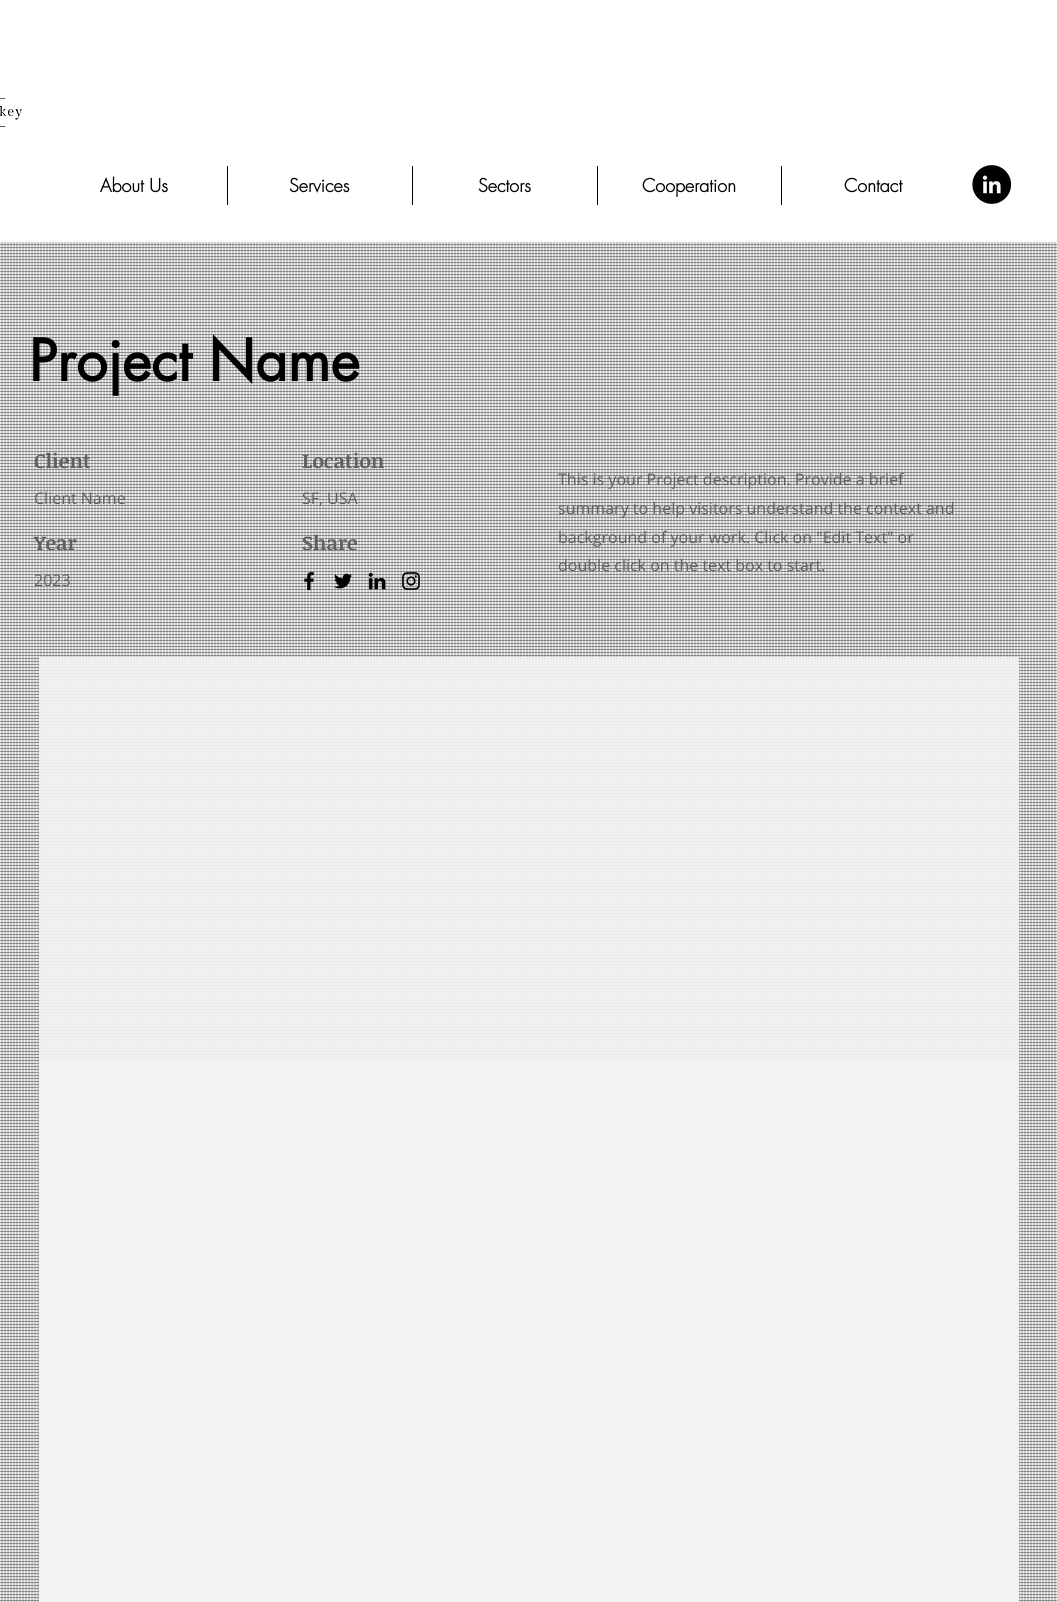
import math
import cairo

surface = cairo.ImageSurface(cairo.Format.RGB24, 1057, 1602)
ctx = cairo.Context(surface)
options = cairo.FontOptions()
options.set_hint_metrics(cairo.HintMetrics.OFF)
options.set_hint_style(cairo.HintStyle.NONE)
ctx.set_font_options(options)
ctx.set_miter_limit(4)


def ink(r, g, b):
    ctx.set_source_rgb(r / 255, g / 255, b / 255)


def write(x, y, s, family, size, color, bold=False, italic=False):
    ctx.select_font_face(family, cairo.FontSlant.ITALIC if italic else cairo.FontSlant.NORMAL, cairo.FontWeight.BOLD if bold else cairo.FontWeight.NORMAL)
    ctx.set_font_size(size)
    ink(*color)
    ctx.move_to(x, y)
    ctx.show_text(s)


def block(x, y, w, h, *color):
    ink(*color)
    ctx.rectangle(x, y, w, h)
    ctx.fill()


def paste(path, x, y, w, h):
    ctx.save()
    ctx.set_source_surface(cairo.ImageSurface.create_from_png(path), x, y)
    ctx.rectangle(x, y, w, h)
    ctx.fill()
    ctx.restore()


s1 = dict(family="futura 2", size=18, color=(0, 0, 0), bold=True)
s2 = dict(family="futura", size=56, color=(0, 0, 0), bold=True)
s3 = dict(family="Noticia Text", size=20, color=(96, 96, 96), bold=True)
s4 = dict(family="Open Sans", size=16, color=(96, 96, 96))

ink(243, 243, 243)
ctx.paint()
block(0, 0, 1057, 242, 255, 255, 255)
paste("pic1.png", 0, 97, 22, 30)
write(100, 192, "About Us", **s1)
block(227, 166, 1, 39, 0, 0, 0)
write(289, 192, "Services", **s1)
block(412, 166, 1, 39, 0, 0, 0)
write(478, 192, "Sectors", **s1)
block(597, 166, 1, 39, 0, 0, 0)
write(642, 192, "Cooperation", **s1)
block(781, 166, 1, 39, 0, 0, 0)
write(844, 192, "Contact", **s1)
paste("pic2.png", 972, 165, 39, 39)
paste("pic7.png", 0, 242, 1057, 1360)
write(29, 381, "Project Name", **s2)
write(34, 468, "Client", **s3)
write(302, 468, "Location", **s3)
write(34, 504, "Client Name", **s4)
write(302, 504, "SF, USA", **s4)
write(34, 550, "Year", **s3)
write(302, 550, "Share", **s3)
write(34, 586, "2023", **s4)
paste("pic3.png", 304, 571, 10, 20)
paste("pic4.png", 334, 573, 18, 16)
paste("pic5.png", 368, 572, 18, 18)
paste("pic6.png", 402, 572, 18, 18)
write(558, 485, "This is your Project description. Provide a brief", **s4)
write(558, 514, "summary to help visitors understand the context and", **s4)
write(558, 543, "background of your work. Click on \"Edit Text\" or", **s4)
write(558, 571, "double click on the text box to start.", **s4)
ctx.set_source_rgba(0.949, 0.949, 0.949, 0.94)
ctx.rectangle(39, 657, 980, 402)
ctx.fill()
block(39, 1059, 980, 543, 242, 242, 242)
surface.write_to_png("screenshot.png")
